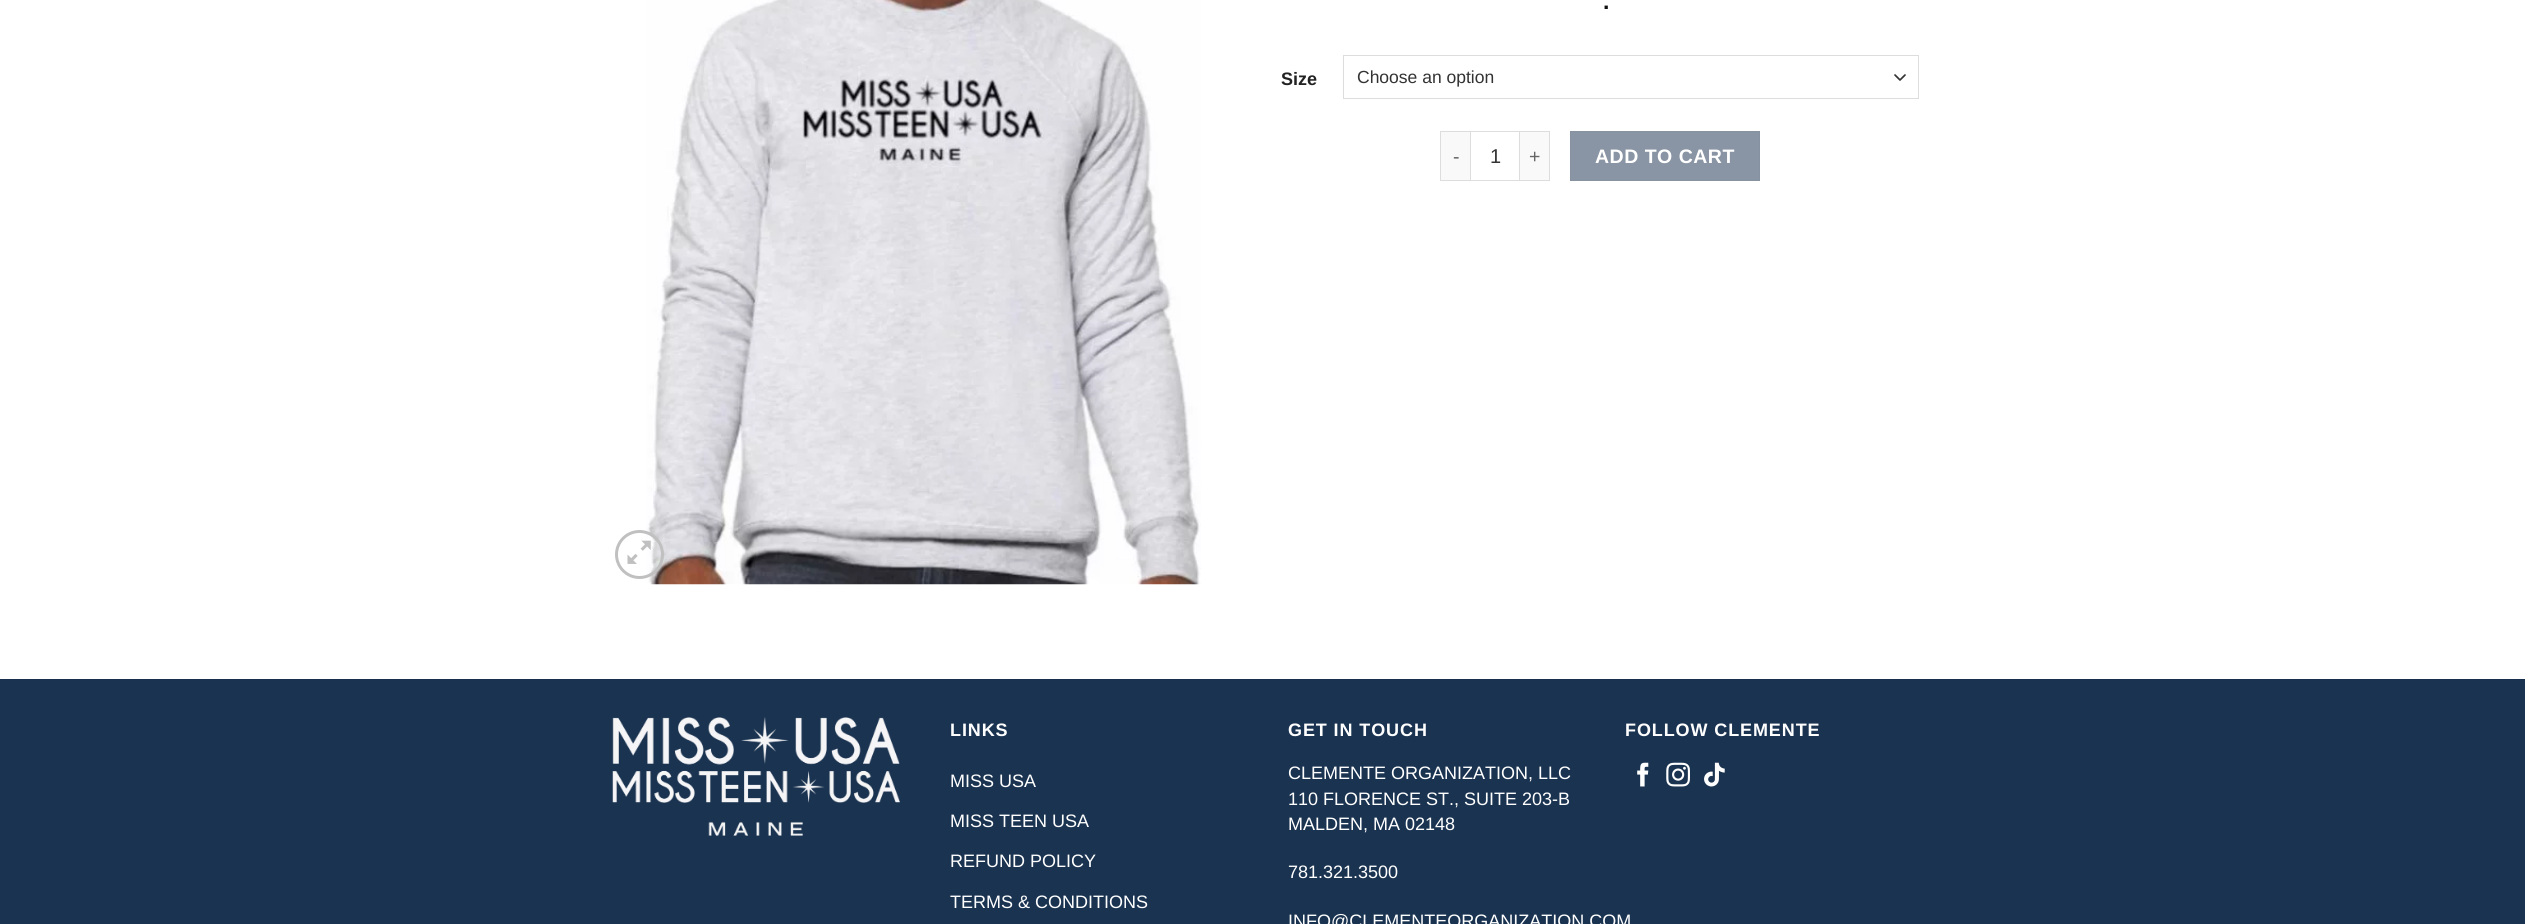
import math
import cairo

surface = cairo.ImageSurface(cairo.Format.RGB24, 2525, 924)
ctx = cairo.Context(surface)
options = cairo.FontOptions()
options.set_hint_metrics(cairo.HintMetrics.OFF)
options.set_hint_style(cairo.HintStyle.NONE)
ctx.set_font_options(options)
ctx.set_miter_limit(4)


def ink(r, g, b):
    ctx.set_source_rgb(r / 255, g / 255, b / 255)


def write(x, y, s, family, size, color, bold=False, italic=False):
    ctx.select_font_face(family, cairo.FontSlant.ITALIC if italic else cairo.FontSlant.NORMAL, cairo.FontWeight.BOLD if bold else cairo.FontWeight.NORMAL)
    ctx.set_font_size(size)
    ink(*color)
    ctx.move_to(x, y)
    ctx.show_text(s)


def write_spaced(x, y, s, letter, word):
    ctx.move_to(x, y)
    for ch in s:
        ctx.show_text(ch)
        ctx.rel_move_to(letter + word * (ch == ' '), 0)


def block(x, y, w, h, *color):
    ink(*color)
    ctx.rectangle(x, y, w, h)
    ctx.fill()


def paste(path, x, y, w, h):
    ctx.save()
    ctx.set_source_surface(cairo.ImageSurface.create_from_png(path), x, y)
    ctx.rectangle(x, y, w, h)
    ctx.fill()
    ctx.restore()


s1 = dict(family="Arimo", size=23, color=(17, 17, 17), bold=True)
s2 = dict(family="Arimo", size=18, color=(34, 34, 34), bold=True)
s3 = dict(family="Arimo", size=17.5, color=(51, 51, 51))
s4 = dict(family="Arimo", size=20, color=(51, 51, 51))
s5 = dict(family="Arimo", size=18, color=(255, 255, 255))

ink(255, 255, 255)
ctx.paint()
paste("pic2.png", 646, 0, 555, 585)
ctx.arc(639.5, 554.5, 23, 0, 2 * math.pi)
ink(192, 192, 192)
ctx.set_line_width(3)
ctx.stroke()
paste("pic1.png", 627, 540, 24, 24)
write(1603, 9, ".", **s1)
write(1281, 85, "Size", **s2)
ctx.new_path()
ctx.move_to(1895, 75)
ctx.line_to(1900, 80)
ctx.line_to(1905, 75)
ink(51, 51, 51)
ctx.set_line_width(1.7)
ctx.set_line_cap(cairo.LineCap.ROUND)
ctx.set_line_join(cairo.LineJoin.ROUND)
ctx.stroke()
ctx.rectangle(1343.5, 55.5, 575, 43)
ink(221, 221, 221)
ctx.set_line_width(1)
ctx.set_line_cap(cairo.LineCap.BUTT)
ctx.set_line_join(cairo.LineJoin.MITER)
ctx.stroke()
write(1357, 83, "Choose an option", **s3)
block(1441, 132, 29, 48, 249, 249, 249)
block(1440, 131, 30, 1, 221, 221, 221)
block(1440, 180, 30, 1, 221, 221, 221)
block(1440, 131, 1, 50, 221, 221, 221)
ctx.set_font_size(19.5)
ink(102, 102, 102)
write_spaced(1453, 163, "-", 0.5, 0)
ctx.rectangle(1470.5, 131.5, 49, 49)
ink(221, 221, 221)
ctx.stroke()
write(1490, 163, "1", **s4)
block(1520, 132, 29, 48, 249, 249, 249)
block(1520, 131, 30, 1, 221, 221, 221)
block(1549, 131, 1, 50, 221, 221, 221)
block(1520, 180, 30, 1, 221, 221, 221)
ctx.set_font_size(19.5)
ink(102, 102, 102)
write_spaced(1529, 163, "+", 0.5, 0)
ink(137, 148, 164)
ctx.rectangle(1570.5, 131.5, 189, 49)
ctx.fill_preserve()
ink(135, 146, 161)
ctx.stroke()
ctx.select_font_face("Arimo", cairo.FontSlant.NORMAL, cairo.FontWeight.BOLD)
ink(255, 255, 255)
write_spaced(1595, 163, "ADD TO CART", 0.5, 0)
block(0, 680, 2525, 244, 26, 51, 80)
block(0, 679, 2525, 1, 25, 48, 76)
paste("pic3.png", 612, 717, 288, 119)
ctx.set_font_size(18)
ink(255, 255, 255)
write_spaced(950, 736, "LINKS", 0.9, 0)
write(950, 787, "MISS USA", **s5)
write(950, 827, "MISS TEEN USA", **s5)
write(950, 867, "REFUND POLICY", **s5)
write(950, 908, "TERMS & CONDITIONS", **s5)
ctx.select_font_face("Arimo", cairo.FontSlant.NORMAL, cairo.FontWeight.BOLD)
write_spaced(1288, 736, "GET IN TOUCH", 0.9, 0)
write(1288, 779, "CLEMENTE ORGANIZATION, LLC", **s5)
write(1288, 805, "110 FLORENCE ST., SUITE 203-B", **s5)
write(1288, 830, "MALDEN, MA 02148", **s5)
write(1288, 878, "781.321.3500", **s5)
write(1288, 927, "INFO@CLEMENTEORGANIZATION.COM", **s5)
ctx.select_font_face("Arimo", cairo.FontSlant.NORMAL, cairo.FontWeight.BOLD)
write_spaced(1625, 736, "FOLLOW CLEMENTE", 0.9, 0)
paste("pic4.png", 1637, 762, 12, 25)
paste("pic5.png", 1666, 762, 24, 25)
paste("pic6.png", 1704, 762, 21, 25)
surface.write_to_png("screenshot.png")
